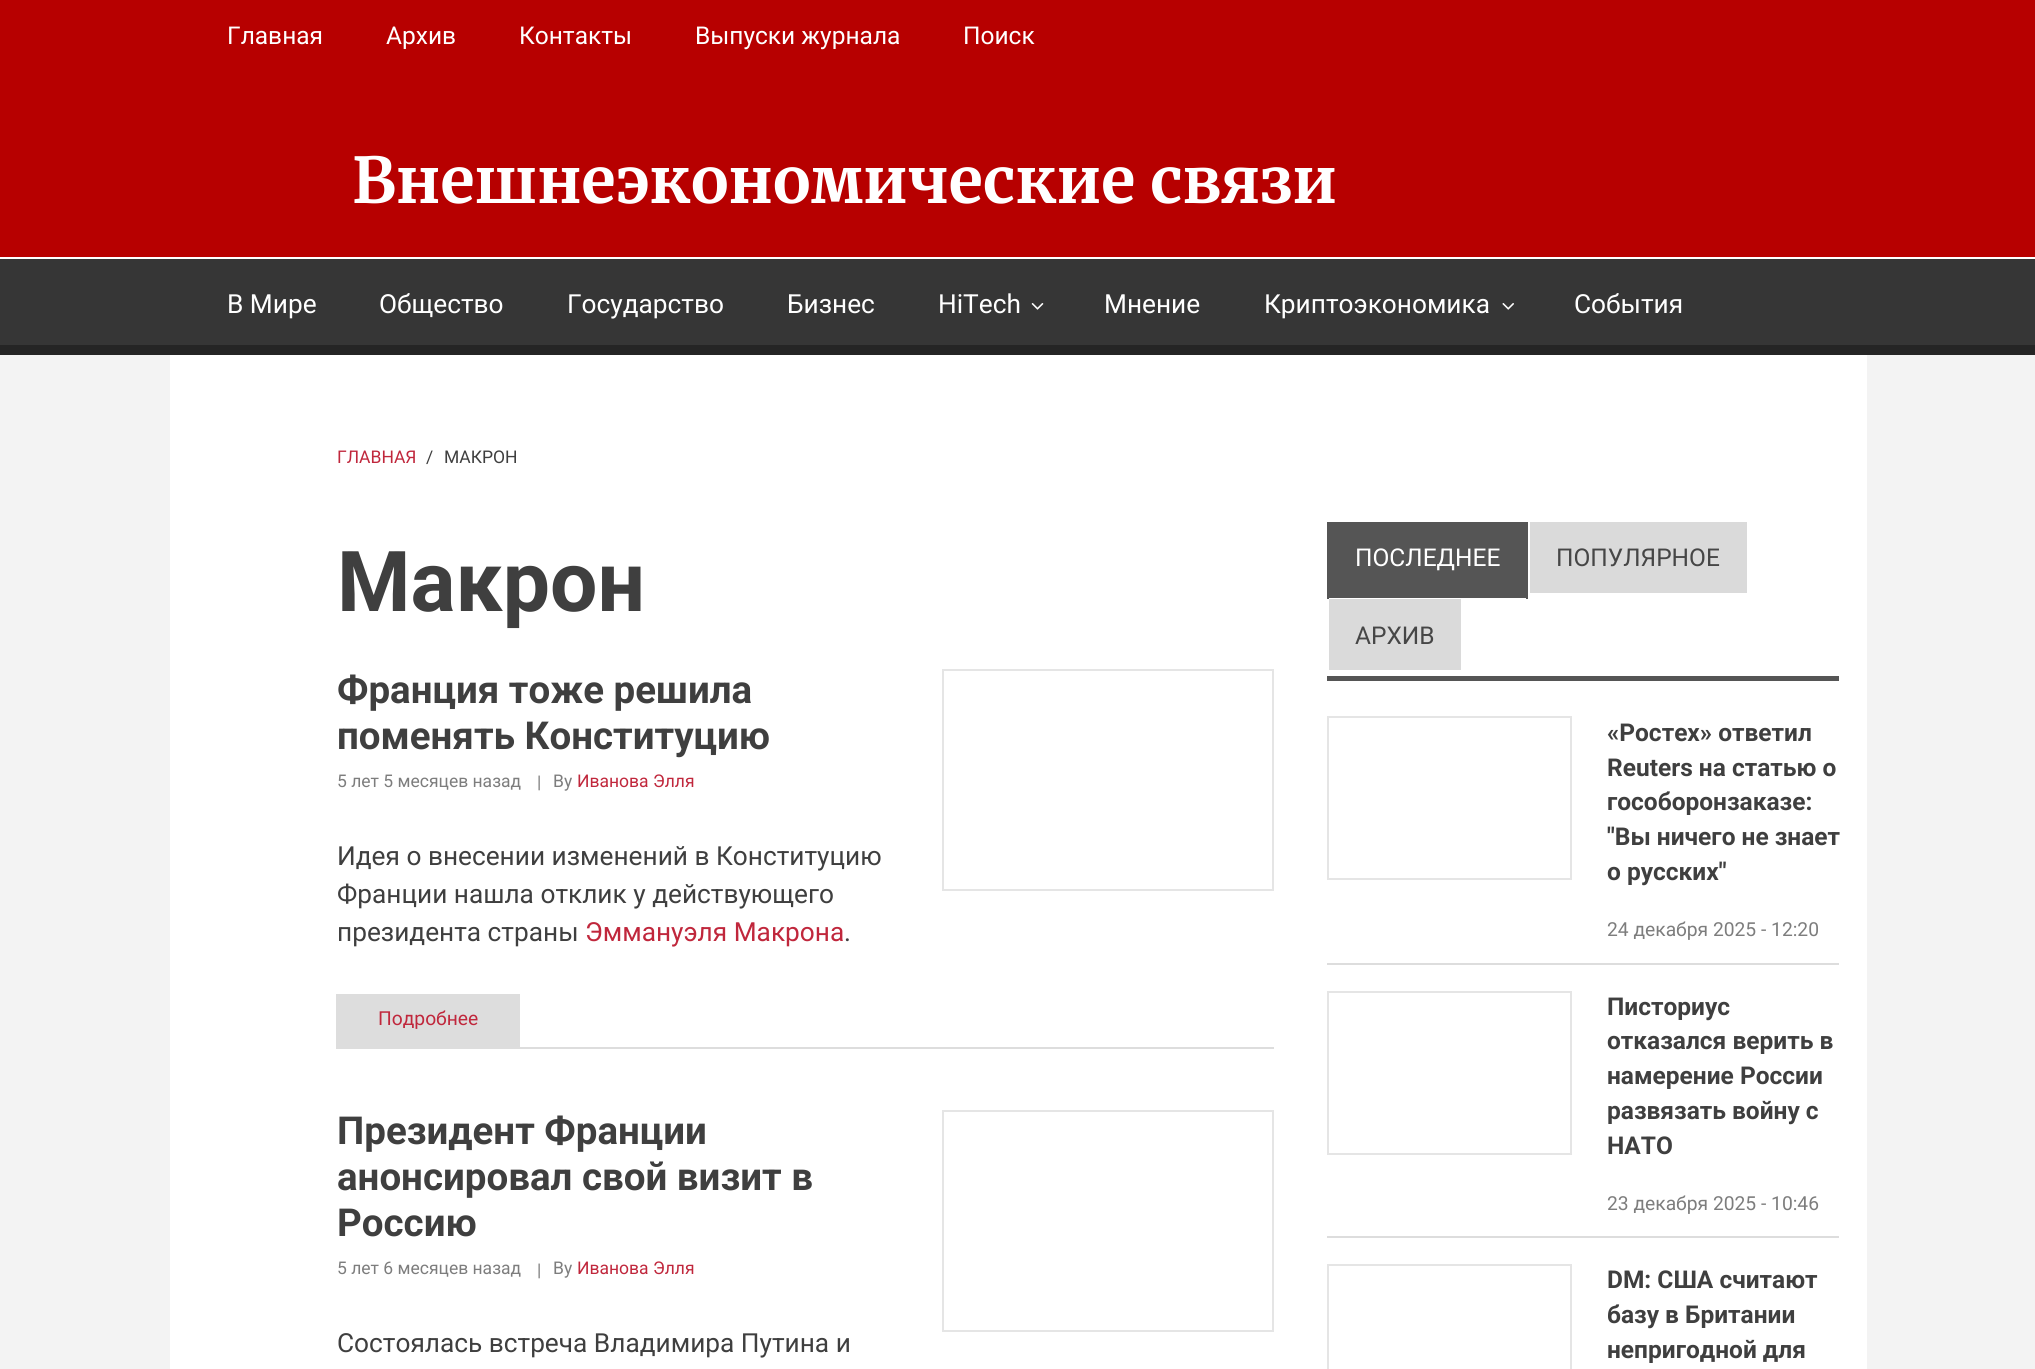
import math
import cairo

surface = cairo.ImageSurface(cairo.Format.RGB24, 2035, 1369)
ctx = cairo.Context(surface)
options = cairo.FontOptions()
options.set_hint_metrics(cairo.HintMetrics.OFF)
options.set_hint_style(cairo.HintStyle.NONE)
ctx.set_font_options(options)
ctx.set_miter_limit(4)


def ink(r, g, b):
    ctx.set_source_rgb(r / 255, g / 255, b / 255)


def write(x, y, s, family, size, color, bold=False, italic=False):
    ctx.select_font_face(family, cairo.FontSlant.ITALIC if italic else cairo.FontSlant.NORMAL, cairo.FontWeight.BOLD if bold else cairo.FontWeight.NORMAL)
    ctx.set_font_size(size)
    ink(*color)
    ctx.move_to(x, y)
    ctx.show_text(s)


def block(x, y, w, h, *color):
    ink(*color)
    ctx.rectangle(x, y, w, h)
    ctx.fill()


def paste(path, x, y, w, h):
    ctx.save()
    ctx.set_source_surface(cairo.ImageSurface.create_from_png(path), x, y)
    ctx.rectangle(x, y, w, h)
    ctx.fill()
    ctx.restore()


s1 = dict(family="Roboto", size=24.5, color=(255, 255, 255))
s2 = dict(family="Merriweather", size=63, color=(255, 255, 255), bold=True)
s3 = dict(family="Roboto", size=26.25, color=(255, 255, 255))
s4 = dict(family="Roboto", size=17.5, color=(192, 39, 60))
s5 = dict(family="Roboto", size=17.5, color=(63, 63, 63))
s6 = dict(family="Roboto", size=84, color=(63, 63, 63), bold=True)
s7 = dict(family="Roboto", size=38.5, color=(63, 63, 63), bold=True)
s8 = dict(family="Roboto", size=17.5, color=(125, 125, 125))
s9 = dict(family="Roboto", size=26.25, color=(63, 63, 63))
s10 = dict(family="Roboto", size=26.25, color=(192, 39, 60))
s11 = dict(family="Roboto", size=19.25, color=(192, 39, 60))
s12 = dict(family="Roboto", size=24.5, color=(70, 70, 70))
s13 = dict(family="Roboto", size=24.5, color=(63, 63, 63), bold=True)
s14 = dict(family="Roboto", size=19.25, color=(125, 125, 125))

ink(243, 243, 243)
ctx.paint()
block(0, 0, 2035, 257, 183, 0, 0)
write(227, 44, "Главная", **s1)
write(386, 44, "Архив", **s1)
write(519, 44, "Контакты", **s1)
write(695, 44, "Выпуски журнала", **s1)
write(963, 44, "Поиск", **s1)
block(0, 257, 2035, 2, 255, 255, 255)
write(352, 203, "Внешнеэкономические связи", **s2)
block(0, 259, 2035, 86, 54, 54, 54)
block(0, 345, 2035, 10, 37, 37, 37)
write(227, 313, "В Мире", **s3)
write(379, 313, "Общество", **s3)
write(567, 313, "Государство", **s3)
write(787, 313, "Бизнес", **s3)
write(938, 313, "HiTech", **s3)
paste("pic1.png", 1031, 303, 13, 7)
write(1104, 313, "Мнение", **s3)
write(1264, 313, "Криптоэкономика", **s3)
paste("pic2.png", 1502, 303, 12, 7)
write(1574, 313, "События", **s3)
block(170, 355, 1697, 1014, 255, 255, 255)
write(337, 463, "ГЛАВНАЯ", **s4)
write(426, 463, "/", **s5)
write(444, 463, "МАКРОН", **s5)
write(337, 611, "Макрон", **s6)
block(336, 1047, 938, 2, 221, 221, 221)
write(337, 703, "Франция тоже решила", **s7)
write(337, 749, "поменять Конституцию", **s7)
write(337, 787, "5 лет 5 месяцев назад", **s8)
write(537, 788, "|", **s8)
write(553, 787, "By", **s8)
write(577, 787, "Иванова Элля", **s4)
write(337, 865, "Идея о внесении изменений в Конституцию", **s9)
write(337, 903, "Франции нашла отклик у действующего", **s9)
write(337, 941, "президента страны", **s9)
write(585, 941, "Эммануэля Макрона", **s10)
write(844, 941, ".", **s9)
block(336, 994, 184, 53, 221, 221, 221)
write(378, 1025, "Подробнее", **s11)
ctx.rectangle(943, 670, 330, 220)
ink(229, 229, 229)
ctx.stroke()
write(337, 1144, "Президент Франции", **s7)
write(337, 1190, "анонсировал свой визит в", **s7)
write(337, 1236, "Россию", **s7)
write(337, 1274, "5 лет 6 месяцев назад", **s8)
write(537, 1276, "|", **s8)
write(553, 1274, "By", **s8)
write(577, 1274, "Иванова Элля", **s4)
write(337, 1352, "Состоялась встреча Владимира Путина и", **s9)
ctx.rectangle(943, 1111, 330, 220)
ink(229, 229, 229)
ctx.stroke()
block(1327, 676, 512, 5, 85, 85, 85)
block(1329, 524, 197, 69, 85, 85, 85)
block(1327, 522, 201, 2, 85, 85, 85)
block(1526, 522, 2, 77, 85, 85, 85)
block(1327, 593, 201, 5, 85, 85, 85)
block(1327, 522, 2, 77, 85, 85, 85)
write(1355, 566, "ПОСЛЕДНЕЕ", **s1)
block(1530, 524, 217, 69, 218, 218, 218)
block(1528, 522, 220, 2, 218, 218, 218)
block(1747, 522, 1, 2, 255, 255, 255)
block(1528, 522, 2, 2, 255, 255, 255)
write(1556, 566, "ПОПУЛЯРНОЕ", **s12)
block(1329, 601, 132, 69, 218, 218, 218)
block(1327, 599, 136, 2, 218, 218, 218)
block(1461, 599, 2, 2, 255, 255, 255)
block(1327, 599, 2, 2, 255, 255, 255)
write(1355, 644, "АРХИВ", **s12)
block(1327, 963, 512, 2, 221, 221, 221)
ctx.rectangle(1328, 717, 243, 162)
ink(229, 229, 229)
ctx.stroke()
write(1607, 741, "«Ростех» ответил", **s13)
write(1607, 776, "Reuters на статью о", **s13)
write(1607, 810, "гособоронзаказе:", **s13)
write(1607, 845, "\"Вы ничего не знает", **s13)
write(1607, 880, "о русских\"", **s13)
write(1607, 936, "24 декабря 2025 - 12:20", **s14)
block(1327, 1236, 512, 2, 221, 221, 221)
ctx.rectangle(1328, 992, 243, 162)
ink(229, 229, 229)
ctx.stroke()
write(1607, 1015, "Писториус", **s13)
write(1607, 1049, "отказался верить в", **s13)
write(1607, 1084, "намерение России", **s13)
write(1607, 1119, "развязать войну с", **s13)
write(1607, 1154, "НАТО", **s13)
write(1607, 1210, "23 декабря 2025 - 10:46", **s14)
ctx.rectangle(1328, 1265, 243, 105)
ink(229, 229, 229)
ctx.stroke()
write(1607, 1288, "DM: США считают", **s13)
write(1607, 1323, "базу в Британии", **s13)
write(1607, 1358, "непригодной для", **s13)
surface.write_to_png("screenshot.png")
